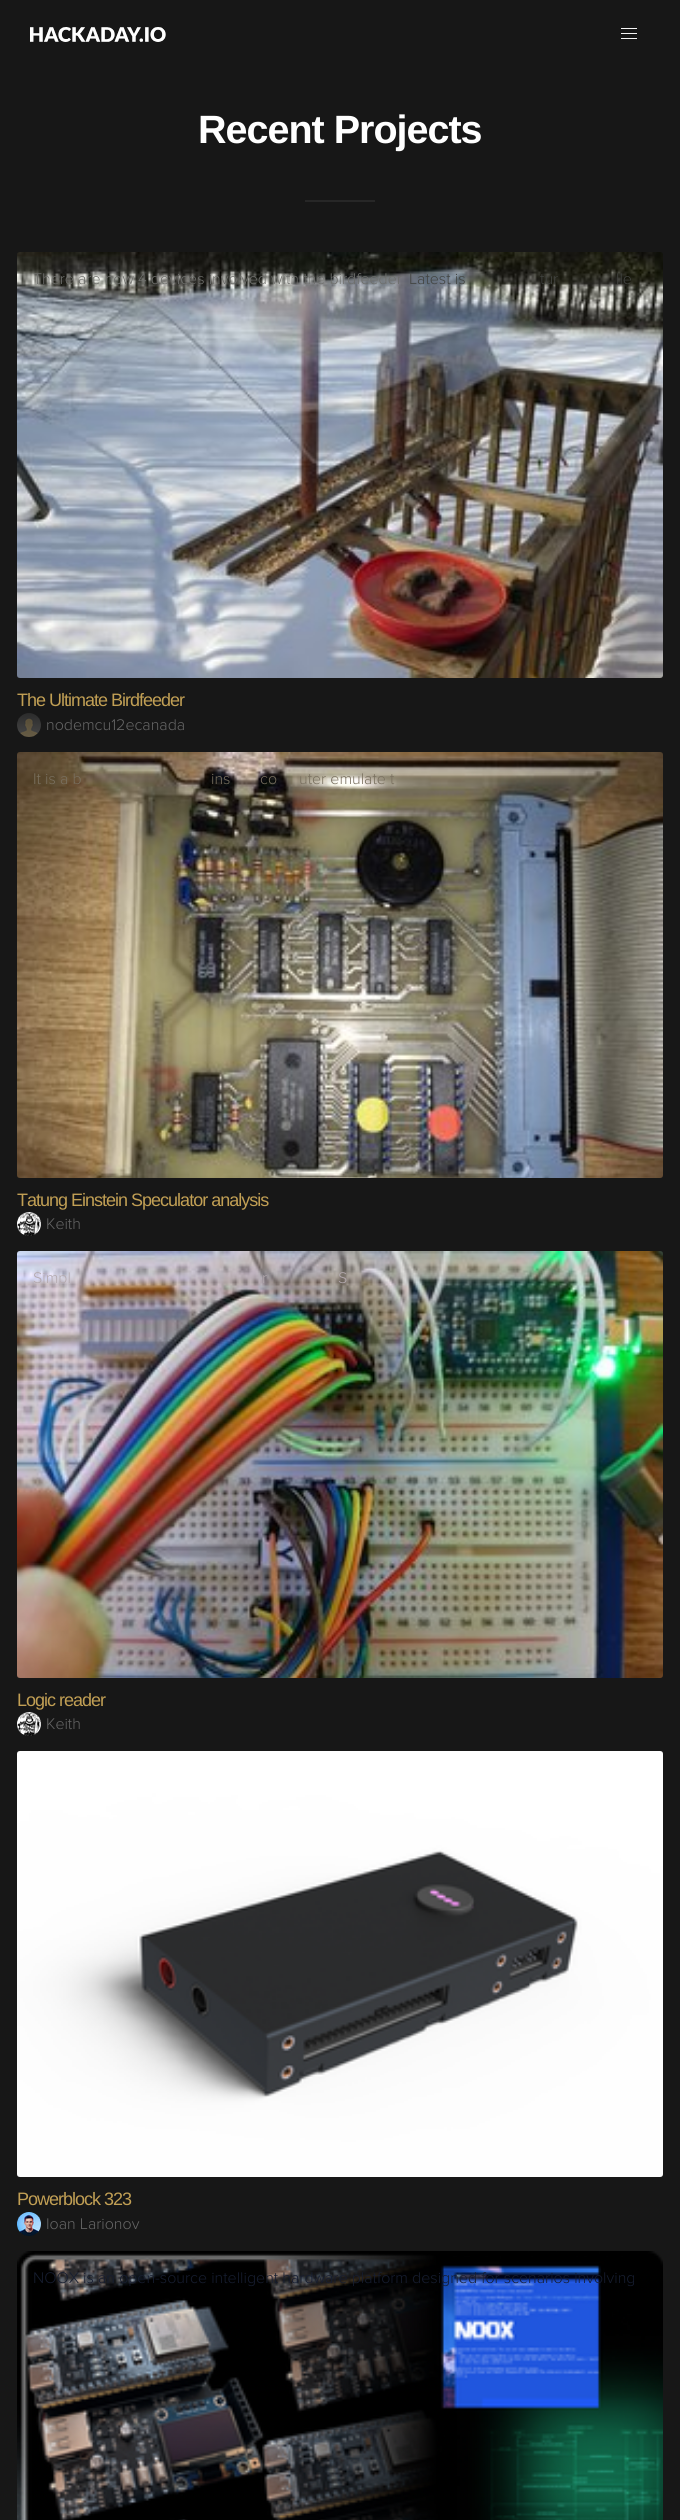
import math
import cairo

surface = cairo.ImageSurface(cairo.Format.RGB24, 680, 2520)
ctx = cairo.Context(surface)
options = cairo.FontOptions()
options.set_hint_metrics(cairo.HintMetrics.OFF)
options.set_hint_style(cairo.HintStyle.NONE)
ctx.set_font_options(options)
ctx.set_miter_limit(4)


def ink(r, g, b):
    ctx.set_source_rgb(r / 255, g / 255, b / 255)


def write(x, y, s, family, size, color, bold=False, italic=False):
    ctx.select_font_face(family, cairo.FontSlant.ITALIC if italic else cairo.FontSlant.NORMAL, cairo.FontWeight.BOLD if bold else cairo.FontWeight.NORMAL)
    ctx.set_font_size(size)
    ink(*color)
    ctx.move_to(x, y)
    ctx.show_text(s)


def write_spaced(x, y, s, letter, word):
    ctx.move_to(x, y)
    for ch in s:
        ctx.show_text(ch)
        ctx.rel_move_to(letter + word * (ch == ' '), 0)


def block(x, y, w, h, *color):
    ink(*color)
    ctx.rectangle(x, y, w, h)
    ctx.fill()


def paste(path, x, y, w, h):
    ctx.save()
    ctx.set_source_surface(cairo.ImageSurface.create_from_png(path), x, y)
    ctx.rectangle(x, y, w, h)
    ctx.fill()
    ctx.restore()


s1 = dict(family="Proxima Nova Light", size=16, color=(110, 111, 108))
s2 = dict(family="Proxima Nova Light", size=16, color=(66, 68, 65))
s3 = dict(family="Proxima Nova Light", size=16, color=(103, 103, 103))
s4 = dict(family="Proxima Nova Light", size=16, color=(121, 112, 95))
s5 = dict(family="Proxima Nova Light", size=16, color=(179, 169, 174))
s6 = dict(family="Proxima Nova Light", size=16, color=(22, 29, 48))

ink(23, 23, 23)
ctx.paint()
paste("pic1.png", 30, 27, 136, 15)
block(621, 28, 16, 1, 245, 245, 245)
block(621, 33, 16, 1, 245, 245, 245)
block(621, 38, 16, 1, 245, 245, 245)
ctx.select_font_face("Liberation Sans", cairo.FontSlant.NORMAL, cairo.FontWeight.BOLD)
ctx.set_font_size(39.5)
ink(255, 255, 255)
write_spaced(198, 143, "Recent Projects", -1, 0)
block(305, 200, 70, 2, 39, 39, 39)
paste("pic2.png", 17, 252, 646, 426)
write(33, 284, "There are now 4 devices involved with the birdfeeder", **s1)
write(409, 284, "Latest is", **s2)
write(540, 284, "tur", **s2)
write(616, 284, "lle", **s2)
ctx.select_font_face("Liberation Sans")
ctx.set_font_size(18)
ink(193, 159, 84)
write_spaced(17, 706, "The Ultimate Birdfeeder", -1, 0)
paste("pic3.png", 17, 713, 24, 24)
write(46, 730, "nodemcu12ecanada", **s3)
paste("pic4.png", 17, 752, 646, 426)
write(33, 784, "It is a b", **s4)
write(211, 784, "ins", **s4)
write(260, 784, "co", **s4)
write(299, 784, "uter emulate t", **s4)
ctx.select_font_face("Liberation Sans")
ctx.set_font_size(18)
ink(193, 159, 84)
write_spaced(17, 1206, "Tatung Einstein Speculator analysis", -1, 0)
paste("pic5.png", 17, 1212, 24, 24)
write(46, 1229, "Keith", **s3)
paste("pic6.png", 17, 1251, 646, 427)
write(33, 1283, "Simpl", **s5)
write(262, 1283, "r", **s5)
write(338, 1283, "S", **s5)
ctx.select_font_face("Liberation Sans")
ctx.set_font_size(18)
ink(193, 159, 84)
write_spaced(17, 1706, "Logic reader", -1, 0)
paste("pic5.png", 17, 1712, 24, 24)
write(46, 1729, "Keith", **s3)
paste("pic7.png", 17, 1751, 646, 426)
ctx.select_font_face("Liberation Sans")
ctx.set_font_size(18)
ink(193, 159, 84)
write_spaced(17, 2205, "Powerblock 323", -1, 0)
paste("pic8.png", 17, 2212, 24, 24)
write(46, 2229, "Ioan Larionov", **s3)
paste("pic9.png", 17, 2251, 646, 269)
write(33, 2283, "NOOX is an open-source intelligent hardware platform designed for scenarios involving", **s6)
surface.write_to_png("screenshot.png")
